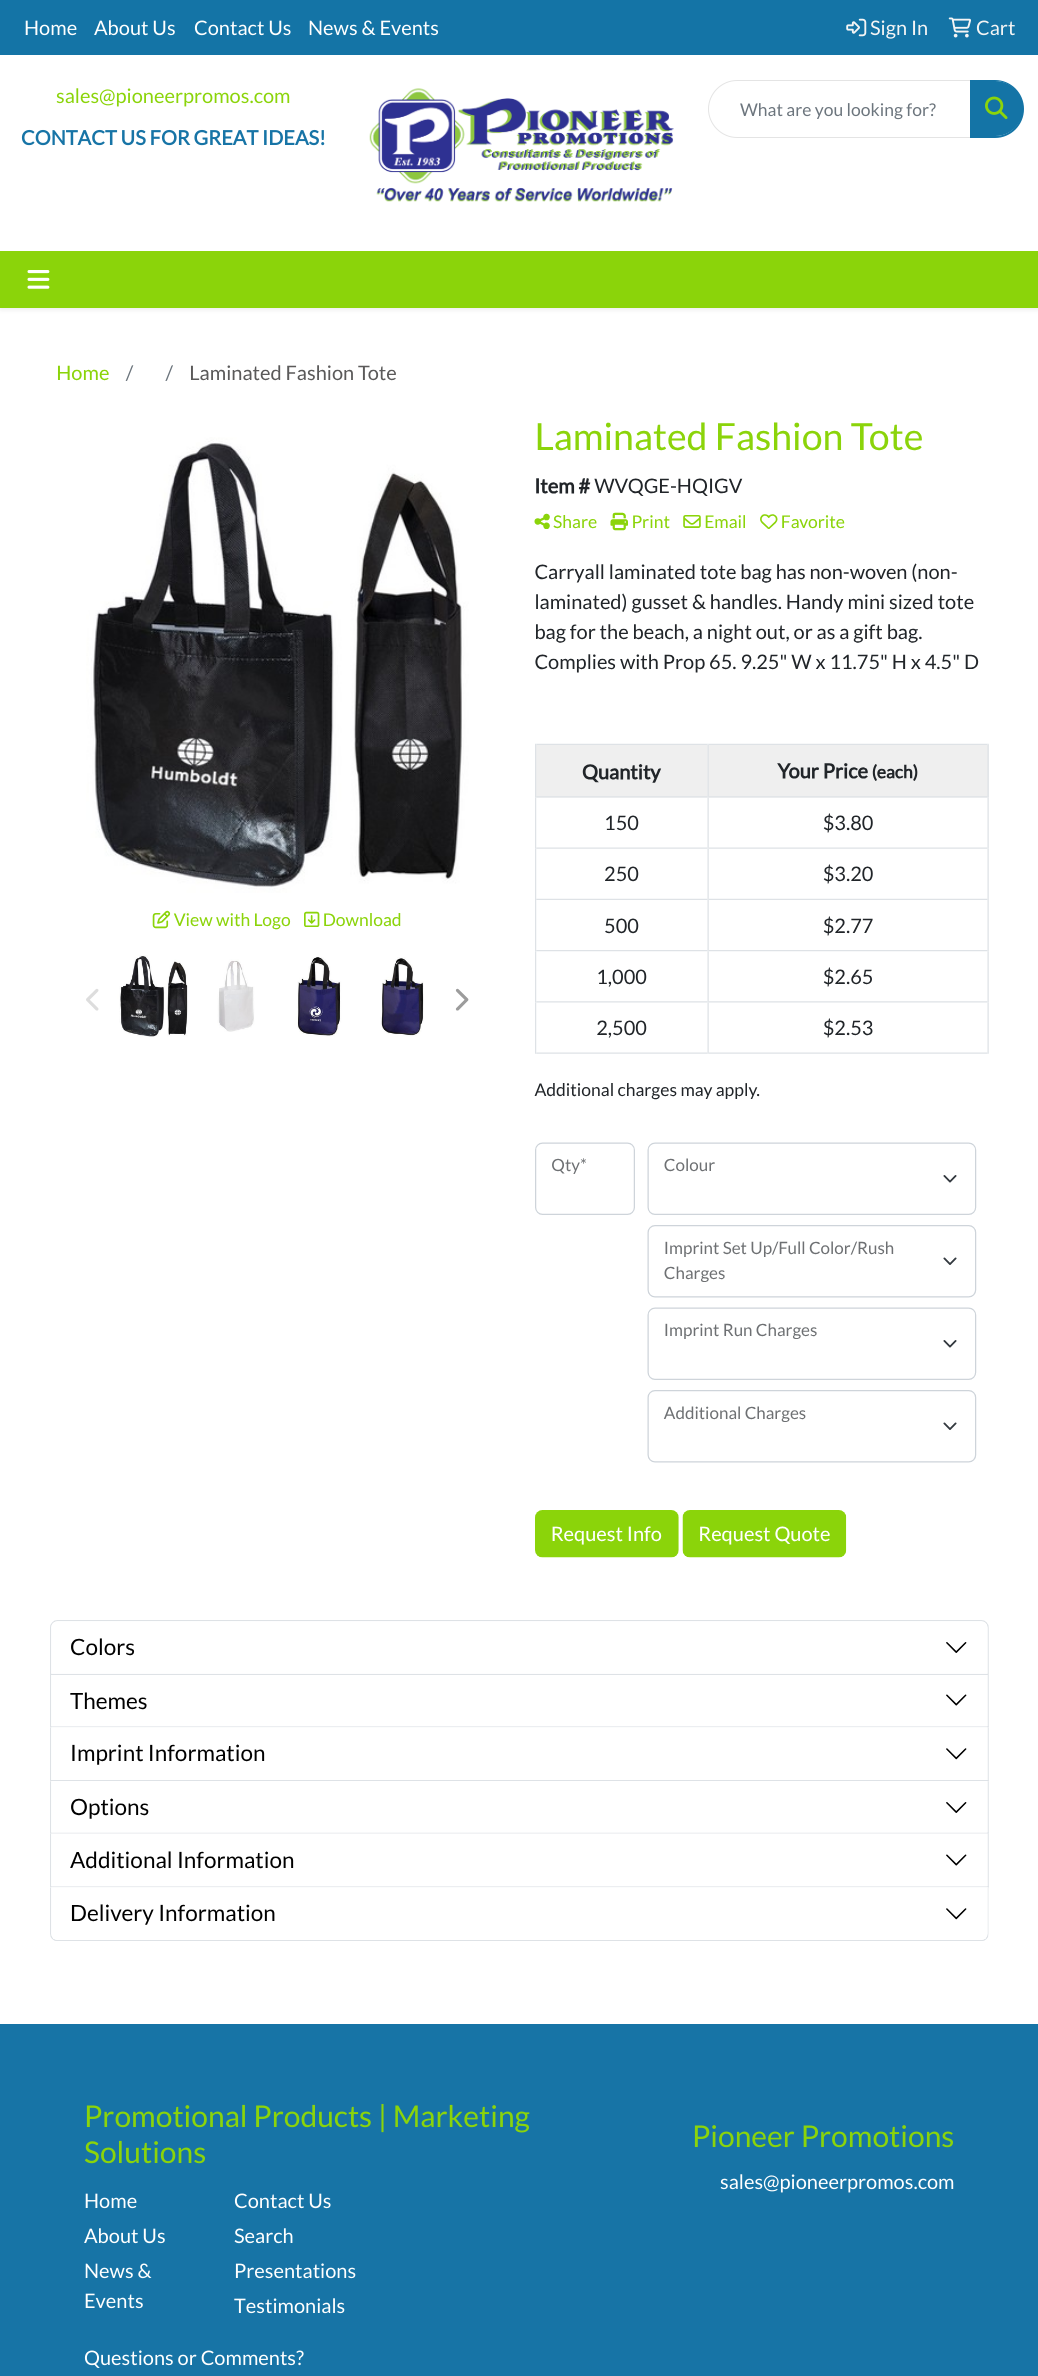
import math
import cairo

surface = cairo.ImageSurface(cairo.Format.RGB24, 1038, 2376)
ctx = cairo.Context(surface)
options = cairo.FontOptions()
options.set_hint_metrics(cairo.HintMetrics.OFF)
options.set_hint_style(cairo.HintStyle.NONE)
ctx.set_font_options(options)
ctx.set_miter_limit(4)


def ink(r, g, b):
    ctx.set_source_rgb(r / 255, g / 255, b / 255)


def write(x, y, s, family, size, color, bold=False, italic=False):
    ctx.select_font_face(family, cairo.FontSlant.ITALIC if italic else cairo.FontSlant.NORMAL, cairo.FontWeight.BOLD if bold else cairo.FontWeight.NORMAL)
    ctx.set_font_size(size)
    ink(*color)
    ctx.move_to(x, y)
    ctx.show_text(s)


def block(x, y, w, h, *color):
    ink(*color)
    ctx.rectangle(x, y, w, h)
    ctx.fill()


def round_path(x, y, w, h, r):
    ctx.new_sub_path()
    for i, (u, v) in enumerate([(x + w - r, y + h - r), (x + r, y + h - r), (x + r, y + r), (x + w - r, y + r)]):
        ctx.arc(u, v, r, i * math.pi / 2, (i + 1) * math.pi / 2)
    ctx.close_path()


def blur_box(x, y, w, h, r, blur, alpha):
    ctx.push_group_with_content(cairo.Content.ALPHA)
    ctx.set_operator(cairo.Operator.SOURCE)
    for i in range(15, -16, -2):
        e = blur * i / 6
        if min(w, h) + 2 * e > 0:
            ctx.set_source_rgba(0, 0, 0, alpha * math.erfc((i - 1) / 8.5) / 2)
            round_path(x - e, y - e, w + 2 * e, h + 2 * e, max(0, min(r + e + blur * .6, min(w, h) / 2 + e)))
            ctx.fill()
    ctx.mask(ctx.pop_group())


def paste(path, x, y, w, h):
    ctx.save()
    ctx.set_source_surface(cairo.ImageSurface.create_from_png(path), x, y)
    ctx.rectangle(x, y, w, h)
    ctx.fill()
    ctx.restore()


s1 = dict(family="Lato", size=20, color=(255, 255, 255))
s2 = dict(family="Lato", size=20, color=(245, 245, 245))
s3 = dict(family="Lato", size=20, color=(139, 212, 10))
s4 = dict(family="Lato", size=20, color=(23, 116, 166), bold=True)
s5 = dict(family="Lato", size=17.5, color=(108, 117, 125))
s6 = dict(family="Lato", size=30, color=(139, 212, 10))

ink(255, 255, 255)
ctx.paint()
block(0, 0, 1038, 55, 20, 116, 166)
write(24, 35, "Home", **s1)
write(94, 35, "About Us", **s1)
write(194, 35, "Contact Us", **s1)
write(308, 35, "News & Events", **s1)
paste("pic1.png", 846, 18, 21, 19)
write(870, 35, "Sign In", **s2)
paste("pic2.png", 948, 17, 23, 21)
write(976, 35, "Cart", **s2)
write(56, 103, "sales@pioneerpromos.com", **s3)
write(21, 145, "CONTACT US FOR GREAT IDEAS!", **s4)
paste("pic3.png", 369, 88, 305, 114)
ctx.new_path()
ctx.move_to(737, 80.5)
ctx.line_to(970.5, 80.5)
ctx.line_to(970.5, 137.5)
ctx.line_to(737, 137.5)
ctx.curve_to(721.5, 137.5, 708.5, 124.5, 708.5, 109)
ctx.curve_to(708.5, 93.5, 721.5, 80.5, 737, 80.5)
ctx.close_path()
ink(228, 228, 228)
ctx.set_line_width(1)
ctx.stroke()
write(740, 116, "What are you looking for?", **s5)
ink(20, 116, 166)
ctx.new_path()
ctx.move_to(970, 81)
ctx.line_to(995.5, 81)
ctx.curve_to(1010.5, 81, 1023, 93.5, 1023, 108.5)
ctx.curve_to(1023, 123.5, 1010.5, 136, 995.5, 136)
ctx.line_to(970, 136)
ctx.close_path()
ctx.fill()
ctx.set_fill_rule(cairo.FillRule.EVEN_ODD)
ctx.new_path()
ctx.move_to(970, 80)
ctx.line_to(995, 80)
ctx.curve_to(1011, 80, 1024, 93, 1024, 109)
ctx.curve_to(1024, 125, 1011, 138, 995, 138)
ctx.line_to(970, 138)
ctx.close_path()
ctx.move_to(970, 81)
ctx.line_to(995, 81)
ctx.curve_to(1010, 81, 1022, 94, 1022, 109)
ctx.curve_to(1022, 124, 1010, 136, 995, 136)
ctx.line_to(970, 136)
ctx.close_path()
ctx.fill()
paste("pic4.png", 985, 96, 23, 23)
ink(0, 0, 0)
blur_box(0, 254, 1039, 56, 0, 2.5, 0.07)
block(0, 251, 1038, 57, 139, 212, 10)
paste("pic5.png", 27, 270, 23, 19)
paste("pic6.png", 50, 365, 939, 1576)
block(0, 2024, 1038, 352, 23, 116, 166)
write(84, 2127, "Promotional Products | Marketing", **s6)
write(84, 2163, "Solutions", **s6)
write(84, 2208, "Home", **s1)
write(84, 2243, "About Us", **s1)
write(84, 2278, "News &", **s1)
write(84, 2308, "Events", **s1)
write(234, 2208, "Contact Us", **s1)
write(234, 2243, "Search", **s1)
write(234, 2278, "Presentations", **s1)
write(234, 2313, "Testimonials", **s1)
write(84, 2365, "Questions or Comments?", **s1)
write(692, 2147, "Pioneer Promotions", **s6)
write(720, 2189, "sales@pioneerpromos.com", **s1)
surface.write_to_png("screenshot.png")
